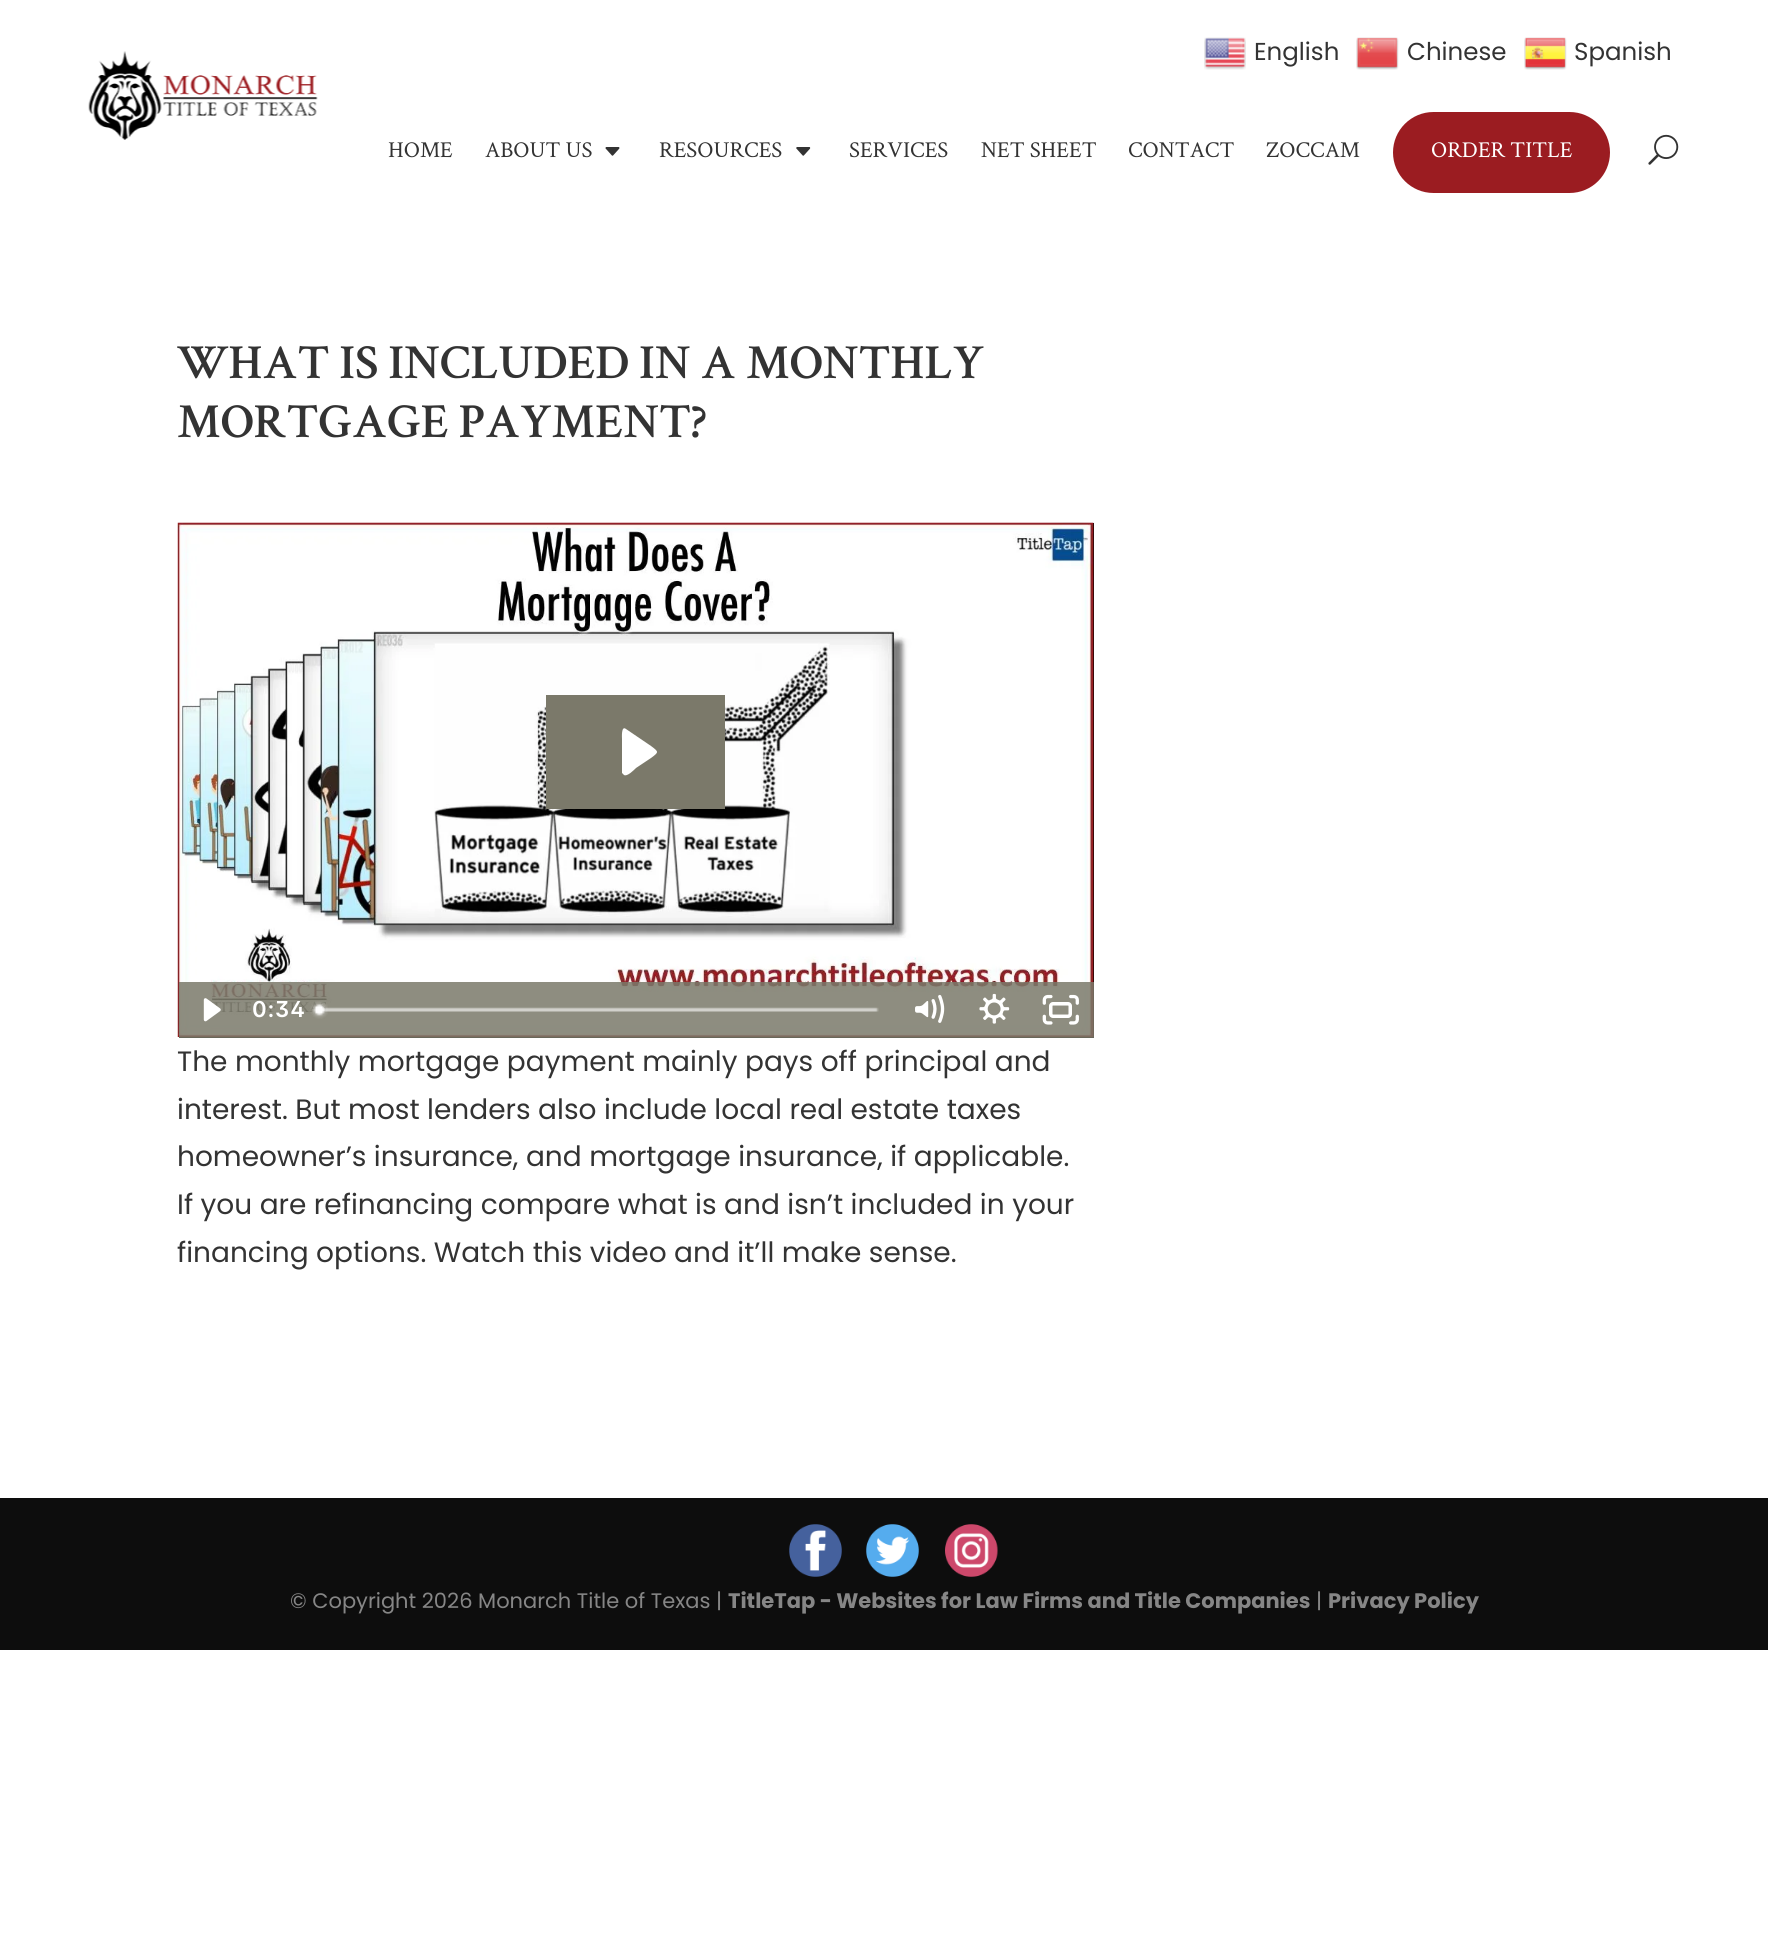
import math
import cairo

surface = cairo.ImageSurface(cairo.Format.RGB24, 1768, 1954)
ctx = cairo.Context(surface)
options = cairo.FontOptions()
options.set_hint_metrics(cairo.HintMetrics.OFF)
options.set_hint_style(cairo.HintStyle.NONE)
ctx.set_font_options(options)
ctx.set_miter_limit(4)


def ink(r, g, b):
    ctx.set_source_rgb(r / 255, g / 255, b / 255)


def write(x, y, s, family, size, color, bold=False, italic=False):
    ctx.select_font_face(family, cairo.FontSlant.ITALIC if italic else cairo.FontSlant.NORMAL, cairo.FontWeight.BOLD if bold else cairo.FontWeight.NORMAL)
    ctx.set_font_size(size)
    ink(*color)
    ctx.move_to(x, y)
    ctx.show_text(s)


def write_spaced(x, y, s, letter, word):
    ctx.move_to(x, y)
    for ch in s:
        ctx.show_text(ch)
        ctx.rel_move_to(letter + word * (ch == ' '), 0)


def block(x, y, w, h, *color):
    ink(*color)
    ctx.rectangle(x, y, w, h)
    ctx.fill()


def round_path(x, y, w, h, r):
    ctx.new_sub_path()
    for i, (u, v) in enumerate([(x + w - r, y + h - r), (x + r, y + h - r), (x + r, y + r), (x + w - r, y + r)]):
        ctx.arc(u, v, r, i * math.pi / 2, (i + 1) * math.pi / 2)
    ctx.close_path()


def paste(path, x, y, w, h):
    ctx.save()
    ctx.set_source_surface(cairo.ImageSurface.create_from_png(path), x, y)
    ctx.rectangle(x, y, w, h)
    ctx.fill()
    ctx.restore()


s1 = dict(family="Poppins", size=24.5, color=(51, 51, 51))
s2 = dict(family="Crimson Text", size=22.75, color=(51, 51, 51))
s3 = dict(family="Crimson Text", size=22.75, color=(255, 255, 255))
s4 = dict(family="Crimson Text SemiBold", size=49, color=(51, 51, 51))
s5 = dict(family="Poppins", size=28, color=(51, 51, 51))
s6 = dict(family="Poppins", size=21, color=(134, 134, 134))
s7 = dict(family="Poppins", size=21, color=(134, 134, 134), bold=True)

ink(255, 255, 255)
ctx.paint()
paste("pic1.png", 1204, 37, 42, 33)
write(1254, 60, "English", **s1)
paste("pic2.png", 1356, 37, 43, 33)
write(1407, 60, "Chinese", **s1)
paste("pic3.png", 1524, 37, 43, 33)
write(1574, 60, "Spanish", **s1)
paste("pic4.png", 88, 51, 230, 89)
write(388, 157, "HOME", **s2)
write(485, 157, "ABOUT US", **s2)
paste("pic5.png", 605, 147, 15, 9)
write(659, 157, "RESOURCES", **s2)
paste("pic6.png", 796, 147, 15, 9)
write(849, 157, "SERVICES", **s2)
write(981, 157, "NET SHEET", **s2)
write(1128, 157, "CONTACT", **s2)
write(1266, 157, "ZOCCAM", **s2)
ink(155, 28, 33)
round_path(1393, 112, 217, 81, 40.5)
ctx.fill()
write(1431, 157, "ORDER TITLE", **s3)
paste("pic7.png", 1648, 134, 31, 31)
write(177, 378, "WHAT IS INCLUDED IN A MONTHLY", **s4)
write(177, 437, "MORTGAGE PAYMENT?", **s4)
paste("pic8.png", 177, 522, 917, 515)
block(179, 523, 915, 515, 0, 0, 0)
paste("pic9.png", 177, 522, 917, 515)
block(546, 695, 179, 114, 123, 121, 106)
ink(255, 255, 255)
ctx.set_fill_rule(cairo.FillRule.EVEN_ODD)
ctx.new_path()
ctx.move_to(626, 729)
ctx.curve_to(621, 725, 622, 738, 622, 739)
ctx.line_to(622, 773)
ctx.line_to(624, 775)
ctx.curve_to(627, 777, 634, 770, 636, 768)
ctx.line_to(651, 758)
ctx.curve_to(659, 752, 659, 752, 651, 746)
ctx.close_path()
ctx.fill()
ctx.set_source_rgba(0.482, 0.475, 0.416, 0.85)
ctx.rectangle(179, 982, 915, 56)
ctx.fill()
paste("pic10.png", 203, 998, 18, 24)
ctx.select_font_face("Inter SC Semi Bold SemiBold")
ctx.set_font_size(22)
ink(255, 255, 255)
write_spaced(252, 1017, "0:34", 1, 0)
paste("pic11.png", 310, 1001, 569, 18)
paste("pic12.png", 915, 994, 30, 29)
paste("pic13.png", 979, 993, 31, 31)
paste("pic14.png", 1042, 994, 37, 31)
write(177, 1071, "The monthly mortgage payment mainly pays off principal and", **s5)
write(177, 1119, "interest. But most lenders also include local real estate taxes", **s5)
write(177, 1166, "homeowner’s insurance, and mortgage insurance, if applicable.", **s5)
write(177, 1214, "If you are refinancing compare what is and isn’t included in your", **s5)
write(177, 1262, "financing options. Watch this video and it’ll make sense.", **s5)
block(0, 1498, 1768, 152, 13, 13, 13)
paste("pic15.png", 789, 1524, 53, 53)
paste("pic16.png", 866, 1524, 53, 53)
paste("pic17.png", 945, 1524, 53, 53)
write(290, 1608, "© Copyright 2026 Monarch Title of Texas |", **s6)
write(728, 1608, "TitleTap - Websites for Law Firms and Title Companies", **s7)
write(1316, 1608, "|", **s6)
write(1328, 1608, "Privacy Policy", **s7)
surface.write_to_png("screenshot.png")
